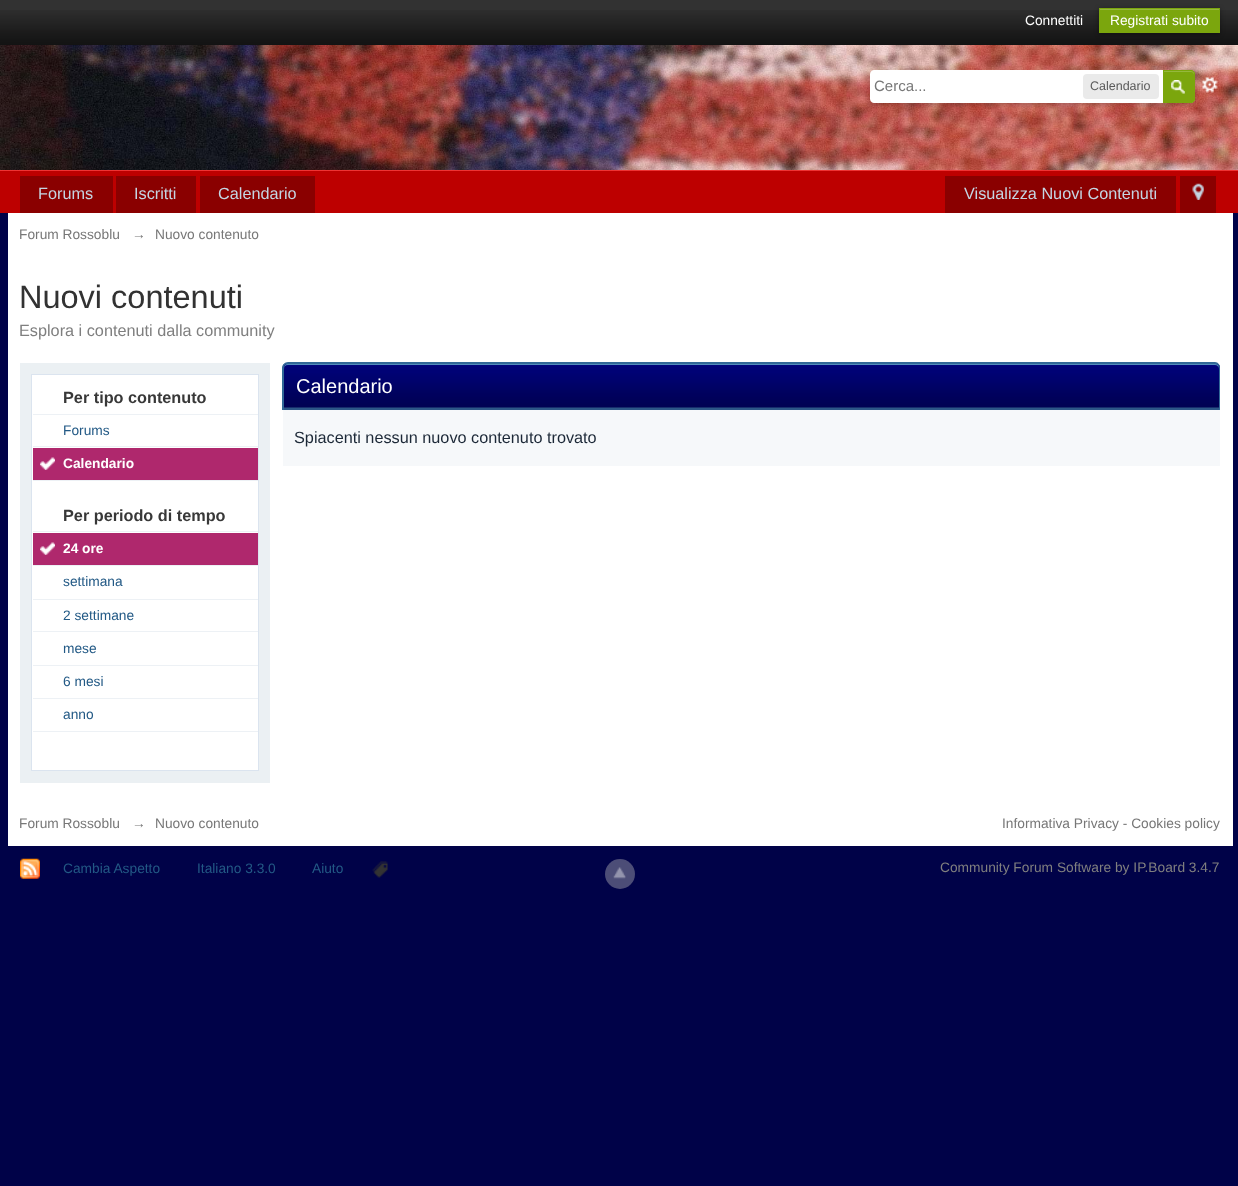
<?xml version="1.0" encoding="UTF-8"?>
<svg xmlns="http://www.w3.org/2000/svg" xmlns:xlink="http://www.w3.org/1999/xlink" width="1238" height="1186">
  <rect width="100%" height="100%" fill="#000248" />
  <rect width="1238" height="10" fill="#323232" />
  <image x="0" y="10" width="1238" height="35" xlink:href="image1.png" />
  <rect x="1099" y="9" width="121" height="25" fill="#000000" fill-opacity="0.4" filter="blur(2.5px)" />
  <rect x="1099" y="8" width="121" height="25" fill="#7ba60d" />
  <rect x="1100" y="9" width="119" height="1" fill="#95b83d" />
  <image x="0" y="45" width="1238" height="125" xlink:href="image2.png" />
  <rect y="170" width="1238" height="1" fill="#ee3333" />
  <image x="1202" y="77" width="16" height="16" xlink:href="image4.png" />
  <rect x="870" y="73" width="325" height="32" rx="5" fill="#000000" fill-opacity="0.2" filter="blur(2.5px)" />
  <path d="M 874 70 h 316 c 3 0 5 2 5 5 v 23 c 0 3 -2 5 -5 5 h -316 c -2 0 -4 -2 -4 -4 v -25 c 0 -2 2 -4 4 -4 z" fill="#ffffff" />
  <rect x="1083" y="74" width="76" height="25" rx="4" fill="#eaeaea" />
  <path d="M 1163 70 h 28 c 2 0 4 2 4 4 v 25 c 0 2 -2 4 -4 4 h -28 z" fill="#7ba60d" />
  <image x="1171" y="80" width="14" height="14" xlink:href="image3.png" />
  <path d="M 1164 72 h 27 c 2 0 3 2 3 3 v -1.5 c 0 -1.5 -1 -2.5 -2.5 -2.5 h -27.5 z" fill="#95b83d" />
  <path d="M 1163.5 70.5 h 27.5 c 2 0 3.5 1.5 3.5 3.5 v 25 c 0 2 -1.5 3.5 -3.5 3.5 h -27.5 z" fill="none" stroke="#7ba60d" />
  <rect y="171" width="1238" height="42" fill="#bd0000" />
  <rect x="20" y="176" width="93" height="37" fill="#8a0000" />
  <rect x="116" y="176" width="80" height="37" fill="#8a0000" />
  <rect x="200" y="176" width="115" height="37" fill="#8a0000" />
  <rect x="945" y="176" width="231" height="37" fill="#8a0000" />
  <rect x="1180" y="176" width="36" height="37" fill="#8a0000" />
  <image x="1192" y="183" width="12" height="17" xlink:href="image5.png" />
  <rect x="8" y="213" width="1225" height="633" fill="#ffffff" />
  <rect x="20" y="363" width="250" height="420" fill="#ebf0f3" />
  <rect x="31.5" y="374.5" width="227" height="396" fill="#ffffff" stroke="#dbe4ef" />
  <rect x="33" y="414" width="225" height="1" fill="#edf1f5" />
  <rect x="33" y="446" width="225" height="1" fill="#edf1f5" />
  <rect x="33" y="480" width="225" height="1" fill="#edf1f5" />
  <rect x="33" y="448" width="225" height="32" fill="#af286d" />
  <image x="40" y="457" width="15" height="13" xlink:href="image6.png" />
  <rect x="33" y="531" width="225" height="1" fill="#edf1f5" />
  <rect x="33" y="565" width="225" height="1" fill="#edf1f5" />
  <rect x="33" y="533" width="225" height="32" fill="#af286d" />
  <image x="40" y="542" width="15" height="13" xlink:href="image6.png" />
  <rect x="33" y="599" width="225" height="1" fill="#edf1f5" />
  <rect x="33" y="631" width="225" height="1" fill="#edf1f5" />
  <rect x="33" y="665" width="225" height="1" fill="#edf1f5" />
  <rect x="33" y="698" width="225" height="1" fill="#edf1f5" />
  <rect x="33" y="731" width="225" height="1" fill="#edf1f5" />
  <path d="M 288 364 h 927 c 2 0 4 2 4 4 v 42 h -935 v -42 c 0 -2 2 -4 4 -4 z" fill="#2c5687" />
  <image x="282" y="363" width="938" height="45" xlink:href="image7.png" />
  <path d="M 288 365 h 927 c 2 0 4 2 4 4 c 0 -3 -1 -5 -4 -5 h -927 c -3 0 -4 2 -4 5 c 0 -2 1 -4 4 -4 z" fill="#528cbc" />
  <path d="M 288 362 h 927 c 3 0 5 3 5 6 v 42 h -938 v -42 c 0 -3 3 -6 6 -6 z m 0 2 h 927 c 2 0 4 1 4 4 v 42 h -935 v -42 c 0 -3 1 -4 4 -4 z" fill="#316897" fill-rule="evenodd" />
  <rect x="283" y="410" width="937" height="56" fill="#f6f8fa" />
  <image x="20" y="858" width="20" height="21" xlink:href="image8.png" />
  <image x="372" y="861" width="16" height="17" xlink:href="image9.png" />
  <circle cx="620" cy="874" r="15" fill="#4c4d77" />
  <image x="613" y="867" width="13" height="12" xlink:href="image10.png" />
  <text x="1025" y="25" style="font-family: Liberation Sans; font-size: 13.75px; fill: #ffffff">Connettiti</text>
  <text x="1110" y="25" style="font-family: Liberation Sans; font-size: 13.75px; fill: #ffffff">Registrati subito</text>
  <text x="874" y="91" style="font-family: Liberation Sans; font-size: 15px; fill: #777777">Cerca...</text>
  <text x="1090" y="90" style="font-family: Liberation Sans; font-size: 12.5px; fill: #5a5a5a">Calendario</text>
  <text x="38" y="199" style="font-family: Liberation Sans; font-size: 16.25px; fill: #c5d5e2">Forums</text>
  <text x="134" y="199" style="font-family: Liberation Sans; font-size: 16.25px; fill: #c5d5e2">Iscritti</text>
  <text x="218" y="199" style="font-family: Liberation Sans; font-size: 16.25px; fill: #c5d5e2">Calendario</text>
  <text x="964" y="199" style="font-family: Liberation Sans; font-size: 16.25px; fill: #c5d5e2">Visualizza Nuovi Contenuti</text>
  <text x="19" y="239" style="font-family: Liberation Sans; font-size: 13.75px; fill: #777777">Forum Rossoblu</text>
  <text x="132" y="239" style="font-family: Liberation Sans; font-size: 13.75px; fill: #777777">→</text>
  <text x="155" y="239" style="font-family: Liberation Sans; font-size: 13.75px; fill: #777777">Nuovo contenuto</text>
  <text x="19" y="308" style="font-family: Liberation Sans; font-size: 32.5px; fill: #323232">Nuovi contenuti</text>
  <text x="19" y="336" style="font-family: Liberation Sans; font-size: 16.25px; fill: #7f7f7f">Esplora i contenuti dalla community</text>
  <text x="63" y="403" style="font-family: Liberation Sans; font-size: 16.25px; font-weight: bold; fill: #383838">Per tipo contenuto</text>
  <text x="63" y="435" style="font-family: Liberation Sans; font-size: 13.75px; fill: #225985">Forums</text>
  <text x="63" y="468" style="font-family: Liberation Sans; font-size: 13.75px; font-weight: bold; fill: #ffffff">Calendario</text>
  <text x="63" y="521" style="font-family: Liberation Sans; font-size: 16.25px; font-weight: bold; fill: #383838">Per periodo di tempo</text>
  <text x="63" y="553" style="font-family: Liberation Sans; font-size: 13.75px; font-weight: bold; fill: #ffffff">24 ore</text>
  <text x="63" y="586" style="font-family: Liberation Sans; font-size: 13.75px; fill: #225985">settimana</text>
  <text x="63" y="620" style="font-family: Liberation Sans; font-size: 13.75px; fill: #225985">2 settimane</text>
  <text x="63" y="653" style="font-family: Liberation Sans; font-size: 13.75px; fill: #225985">mese</text>
  <text x="63" y="686" style="font-family: Liberation Sans; font-size: 13.75px; fill: #225985">6 mesi</text>
  <text x="63" y="719" style="font-family: Liberation Sans; font-size: 13.75px; fill: #225985">anno</text>
  <text x="296" y="393" style="font-family: Liberation Sans; font-size: 20px; fill: #ffffff">Calendario</text>
  <text x="294" y="443" style="font-family: Liberation Sans; font-size: 16.25px; fill: #1c2837">Spiacenti nessun nuovo contenuto trovato</text>
  <text x="19" y="828" style="font-family: Liberation Sans; font-size: 13.75px; fill: #777777">Forum Rossoblu</text>
  <text x="132" y="828" style="font-family: Liberation Sans; font-size: 13.75px; fill: #777777">→</text>
  <text x="155" y="828" style="font-family: Liberation Sans; font-size: 13.75px; fill: #777777">Nuovo contenuto</text>
  <text x="1002" y="828" style="font-family: Liberation Sans; font-size: 13.75px; fill: #777777">Informativa Privacy - Cookies policy</text>
  <text x="63" y="873" style="font-family: Liberation Sans; font-size: 13.75px; fill: #225985">Cambia Aspetto</text>
  <text x="197" y="873" style="font-family: Liberation Sans; font-size: 13.75px; fill: #225985">Italiano 3.3.0</text>
  <text x="312" y="873" style="font-family: Liberation Sans; font-size: 13.75px; fill: #225985">Aiuto</text>
  <text x="940" y="872" style="font-family: Liberation Sans; font-size: 13.75px; fill: #7f7f7f">Community Forum Software by IP.Board 3.4.7</text>
</svg>
